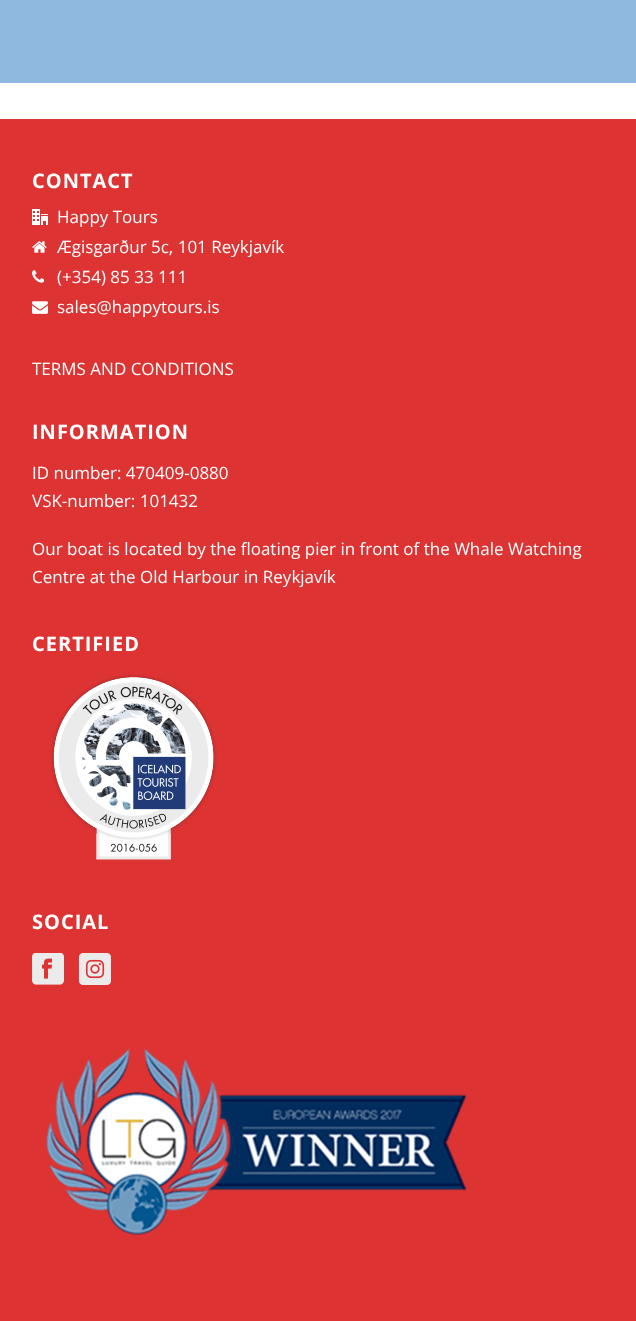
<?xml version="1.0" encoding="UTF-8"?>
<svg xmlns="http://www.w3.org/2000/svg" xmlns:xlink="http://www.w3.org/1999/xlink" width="636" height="1321">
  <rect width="100%" height="100%" fill="#ffffff" />
  <rect width="636" height="83" fill="#8fb9df" />
  <rect y="119" width="636" height="1202" fill="#dd3333" />
  <image x="32" y="209" width="16" height="16" xlink:href="image1.png" />
  <image x="32" y="241" width="15" height="12" xlink:href="image2.png" />
  <image x="32" y="270" width="12" height="13" xlink:href="image3.png" />
  <image x="32" y="301" width="16" height="13" xlink:href="image4.png" />
  <image x="50" y="674" width="167" height="186" xlink:href="image5.png" />
  <image x="32" y="953" width="32" height="32" xlink:href="image6.png" />
  <image x="79" y="953" width="32" height="32" xlink:href="image7.png" />
  <image x="46" y="1048" width="421" height="187" xlink:href="image8.png" />
  <text x="32" y="188" style="font-family: Open Sans; font-size: 20px; font-weight: bold; letter-spacing: 1px; fill: #ffffff">CONTACT</text>
  <text x="57" y="223" style="font-family: Open Sans; font-size: 17px; fill: #ffffff">Happy Tours</text>
  <text x="57" y="253" style="font-family: Open Sans; font-size: 17px; fill: #ffffff">Ægisgarður 5c, 101 Reykjavík</text>
  <text x="57" y="283" style="font-family: Open Sans; font-size: 17px; fill: #ffffff">(+354) 85 33 111</text>
  <text x="57" y="313" style="font-family: Open Sans; font-size: 17px; fill: #ffffff">sales@happytours.is</text>
  <text x="32" y="375" style="font-family: Open Sans; font-size: 17px; fill: #ffffff">TERMS AND CONDITIONS</text>
  <text x="32" y="439" style="font-family: Open Sans; font-size: 20px; font-weight: bold; letter-spacing: 1px; fill: #ffffff">INFORMATION</text>
  <text x="32" y="479" style="font-family: Open Sans; font-size: 17px; fill: #ffffff">ID number: 470409-0880</text>
  <text x="32" y="507" style="font-family: Open Sans; font-size: 17px; fill: #ffffff">VSK-number: 101432</text>
  <text x="32" y="555" style="font-family: Open Sans; font-size: 17px; fill: #ffffff">Our boat is located by the floating pier in front of the Whale Watching</text>
  <text x="32" y="583" style="font-family: Open Sans; font-size: 17px; fill: #ffffff">Centre at the Old Harbour in Reykjavík</text>
  <text x="32" y="651" style="font-family: Open Sans; font-size: 20px; font-weight: bold; letter-spacing: 1px; fill: #ffffff">CERTIFIED</text>
  <text x="32" y="929" style="font-family: Open Sans; font-size: 20px; font-weight: bold; letter-spacing: 1px; fill: #ffffff">SOCIAL</text>
</svg>
